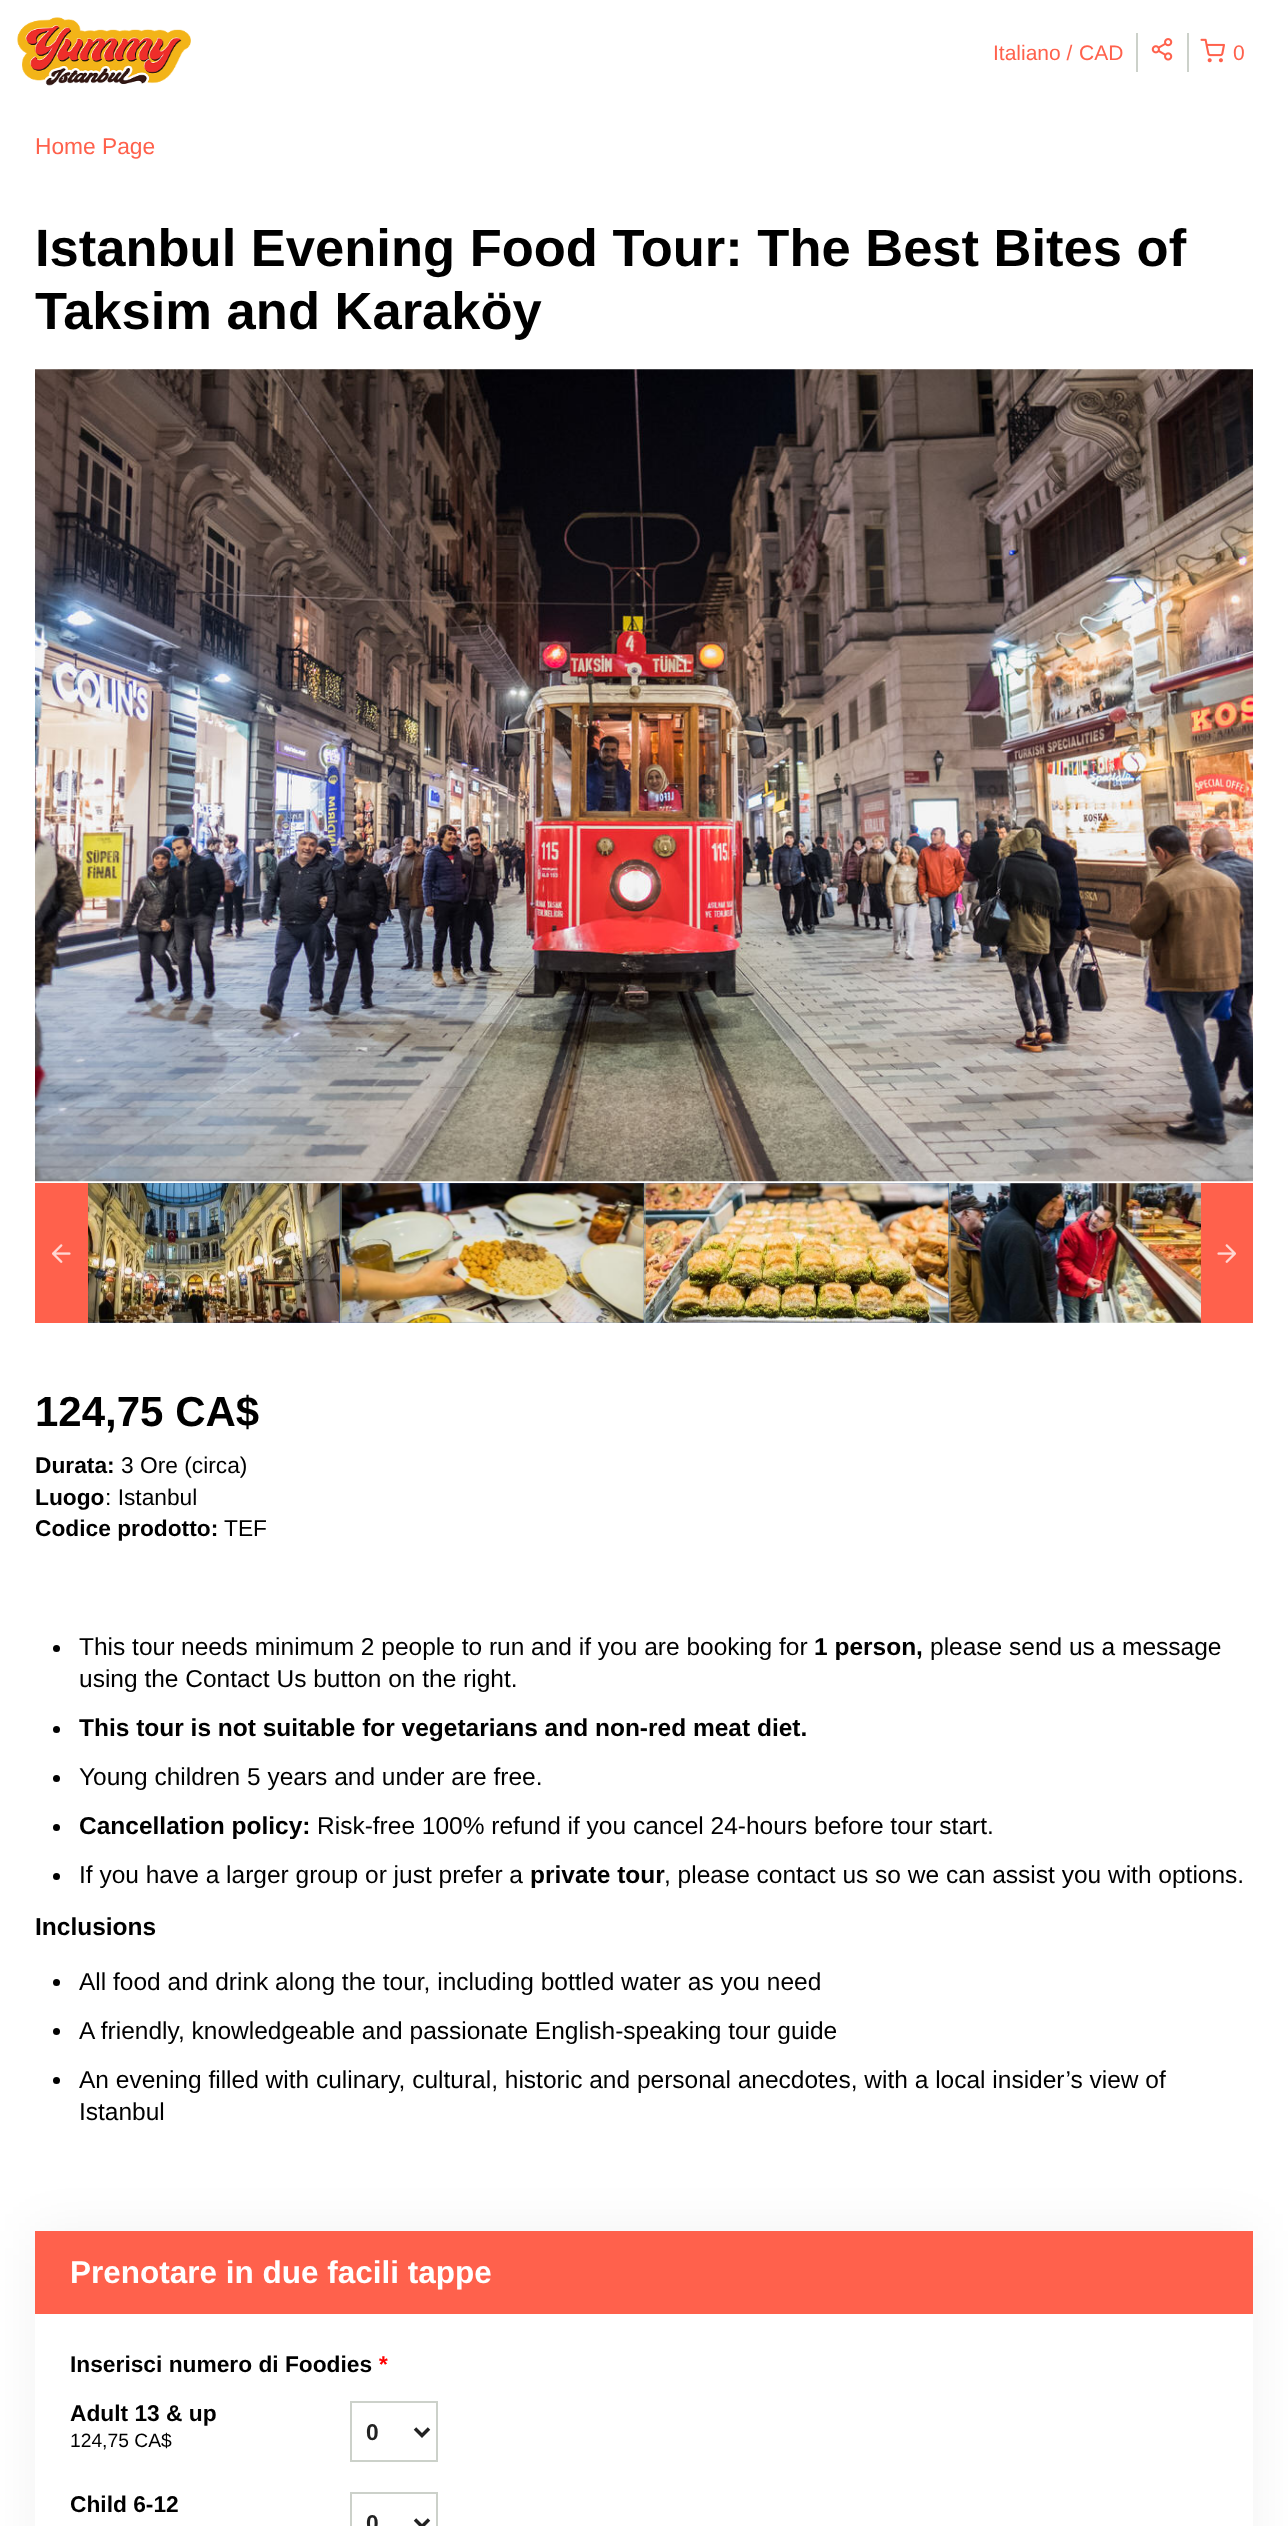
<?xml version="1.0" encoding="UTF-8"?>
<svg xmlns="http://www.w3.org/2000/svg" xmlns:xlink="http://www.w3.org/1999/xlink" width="1288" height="2526">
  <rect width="100%" height="100%" fill="#ffffff" />
  <image x="17" y="17" width="174" height="69" xlink:href="image1.png" />
  <rect x="1136" y="33" width="2" height="39" fill="#ccd1ca" />
  <rect x="1187" y="33" width="2" height="39" fill="#ccd1ca" />
  <image x="1151" y="38" width="22" height="23" xlink:href="image2.png" />
  <image x="1200" y="38" width="25" height="25" xlink:href="image3.png" />
  <image x="35" y="369" width="1218" height="813" xlink:href="image4.png" />
  <rect x="35" y="1183" width="53" height="140" fill="#ff614c" />
  <image x="52" y="1244" width="19" height="19" xlink:href="image5.png" />
  <rect x="88" y="1183" width="861" height="140" fill="#3c68b4" />
  <image x="88" y="1183" width="252" height="140" xlink:href="image6.png" />
  <image x="340" y="1183" width="304" height="140" xlink:href="image7.png" />
  <rect x="340" y="1183" width="2" height="140" fill="#98a394" fill-opacity="0.5" />
  <image x="644" y="1183" width="305" height="140" xlink:href="image8.png" />
  <rect x="644" y="1183" width="2" height="140" fill="#98a394" fill-opacity="0.5" />
  <image x="949" y="1183" width="252" height="140" xlink:href="image9.png" />
  <rect x="949" y="1183" width="2" height="140" fill="#98a394" fill-opacity="0.5" />
  <rect x="1201" y="1183" width="52" height="140" fill="#ff614c" />
  <image x="1217" y="1244" width="19" height="19" xlink:href="image10.png" />
  <circle cx="56.5" cy="1648.5" r="3.5" fill="#000000" />
  <circle cx="56.5" cy="1729.5" r="3.5" fill="#000000" />
  <circle cx="56.5" cy="1778.5" r="3.5" fill="#000000" />
  <circle cx="56.5" cy="1827.5" r="3.5" fill="#000000" />
  <circle cx="56.5" cy="1876.5" r="3.5" fill="#000000" />
  <circle cx="56.5" cy="1982.5" r="3.5" fill="#000000" />
  <circle cx="56.5" cy="2031.5" r="3.5" fill="#000000" />
  <circle cx="56.5" cy="2080.5" r="3.5" fill="#000000" />
  <rect x="35" y="2231" width="1218" height="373" fill="#000000" fill-opacity="0.05" filter="blur(26px)" />
  <rect x="35" y="2314" width="1218" height="212" fill="#ffffff" />
  <rect x="35" y="2231" width="1218" height="83" fill="#ff614c" />
  <rect x="351" y="2402" width="86" height="59" fill="none" stroke="#ccd1ca" stroke-width="2" />
  <path d="M 415 2428.5 l 7 7 l 7 -7" fill="none" stroke="#222222" stroke-width="3.5" />
  <rect x="351" y="2493" width="86" height="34" fill="none" stroke="#ccd1ca" stroke-width="2" />
  <path d="M 415 2519.5 l 7 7 l 7 -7" fill="none" stroke="#222222" stroke-width="3.5" />
  <text x="993" y="60" style="font-family: Liberation Sans; font-size: 21px; fill: #ff614c">Italiano /</text>
  <text x="1079" y="60" style="font-family: Liberation Sans; font-size: 21px; fill: #ff614c">CAD</text>
  <text x="1233" y="60" style="font-family: Liberation Sans; font-size: 21px; fill: #ff614c">0</text>
  <text x="35" y="154" style="font-family: Liberation Sans; font-size: 22.75px; fill: #ff614c">Home Page</text>
  <text x="35" y="266" style="font-family: Liberation Sans; font-size: 52.5px; font-weight: bold; fill: #000000">Istanbul Evening Food Tour: The Best Bites of</text>
  <text x="35" y="329" style="font-family: Liberation Sans; font-size: 52.5px; font-weight: bold; fill: #000000">Taksim and Karaköy</text>
  <text x="35" y="1426" style="font-family: Liberation Sans; font-size: 42px; font-weight: bold; fill: #000000">124,75 CA$</text>
  <text x="35" y="1473" style="font-family: Liberation Sans; font-size: 22.75px; font-weight: bold; fill: #000000">Durata:</text>
  <text x="121" y="1473" style="font-family: Liberation Sans; font-size: 22.75px; fill: #000000">3 Ore (circa)</text>
  <text x="35" y="1505" style="font-family: Liberation Sans; font-size: 22.75px; font-weight: bold; fill: #000000">Luogo</text>
  <text x="105" y="1505" style="font-family: Liberation Sans; font-size: 22.75px; fill: #000000">: Istanbul</text>
  <text x="35" y="1536" style="font-family: Liberation Sans; font-size: 22.75px; font-weight: bold; fill: #000000">Codice prodotto:</text>
  <text x="224" y="1536" style="font-family: Liberation Sans; font-size: 22.75px; fill: #000000">TEF</text>
  <text x="79" y="1655" style="font-family: Liberation Sans; font-size: 24.5px; fill: #000000">This tour needs minimum 2 people to run and if you are booking for</text>
  <text x="814" y="1655" style="font-family: Liberation Sans; font-size: 24.5px; font-weight: bold; fill: #000000">1 person,</text>
  <text x="930" y="1655" style="font-family: Liberation Sans; font-size: 24.5px; fill: #000000">please send us a message</text>
  <text x="79" y="1687" style="font-family: Liberation Sans; font-size: 24.5px; fill: #000000">using the Contact Us button on the right.</text>
  <text x="79" y="1736" style="font-family: Liberation Sans; font-size: 24.5px; font-weight: bold; fill: #000000">This tour is not suitable for vegetarians and non-red meat diet.</text>
  <text x="79" y="1785" style="font-family: Liberation Sans; font-size: 24.5px; fill: #000000">Young children 5 years and under are free.</text>
  <text x="79" y="1834" style="font-family: Liberation Sans; font-size: 24.5px; font-weight: bold; fill: #000000">Cancellation policy:</text>
  <text x="317" y="1834" style="font-family: Liberation Sans; font-size: 24.5px; fill: #000000">Risk-free 100% refund if you cancel 24-hours before tour start.</text>
  <text x="79" y="1883" style="font-family: Liberation Sans; font-size: 24.5px; fill: #000000">If you have a larger group or just prefer a</text>
  <text x="530" y="1883" style="font-family: Liberation Sans; font-size: 24.5px; font-weight: bold; fill: #000000">private tour</text>
  <text x="664" y="1883" style="font-family: Liberation Sans; font-size: 24.5px; fill: #000000">, please contact us so we can assist you with options.</text>
  <text x="35" y="1935" style="font-family: Liberation Sans; font-size: 24.5px; font-weight: bold; fill: #000000">Inclusions</text>
  <text x="79" y="1990" style="font-family: Liberation Sans; font-size: 24.5px; fill: #000000">All food and drink along the tour, including bottled water as you need</text>
  <text x="79" y="2039" style="font-family: Liberation Sans; font-size: 24.5px; fill: #000000">A friendly, knowledgeable and passionate English-speaking tour guide</text>
  <text x="79" y="2088" style="font-family: Liberation Sans; font-size: 24.5px; fill: #000000">An evening filled with culinary, cultural, historic and personal anecdotes, with a local insider’s view of</text>
  <text x="79" y="2120" style="font-family: Liberation Sans; font-size: 24.5px; fill: #000000">Istanbul</text>
  <text x="70" y="2283" style="font-family: Liberation Sans; font-size: 31.5px; font-weight: bold; fill: #ffffff">Prenotare in due facili tappe</text>
  <text x="70" y="2372" style="font-family: Liberation Sans; font-size: 22.75px; font-weight: bold; fill: #000000">Inserisci numero di Foodies</text>
  <text x="378" y="2372" style="font-family: Liberation Sans; font-size: 22.75px; font-weight: bold; font-style: italic; fill: #ff0000">*</text>
  <text x="70" y="2421" style="font-family: Liberation Sans; font-size: 22.75px; font-weight: bold; fill: #000000">Adult 13 &amp; up</text>
  <text x="70" y="2447" style="font-family: Liberation Sans; font-size: 19.25px; fill: #000000">124,75 CA$</text>
  <text x="366" y="2440" style="font-family: Liberation Sans; font-size: 22.75px; font-weight: bold; fill: #222222">0</text>
  <text x="70" y="2512" style="font-family: Liberation Sans; font-size: 22.75px; font-weight: bold; fill: #000000">Child 6-12</text>
  <text x="366" y="2531" style="font-family: Liberation Sans; font-size: 22.75px; font-weight: bold; fill: #222222">0</text>
</svg>
